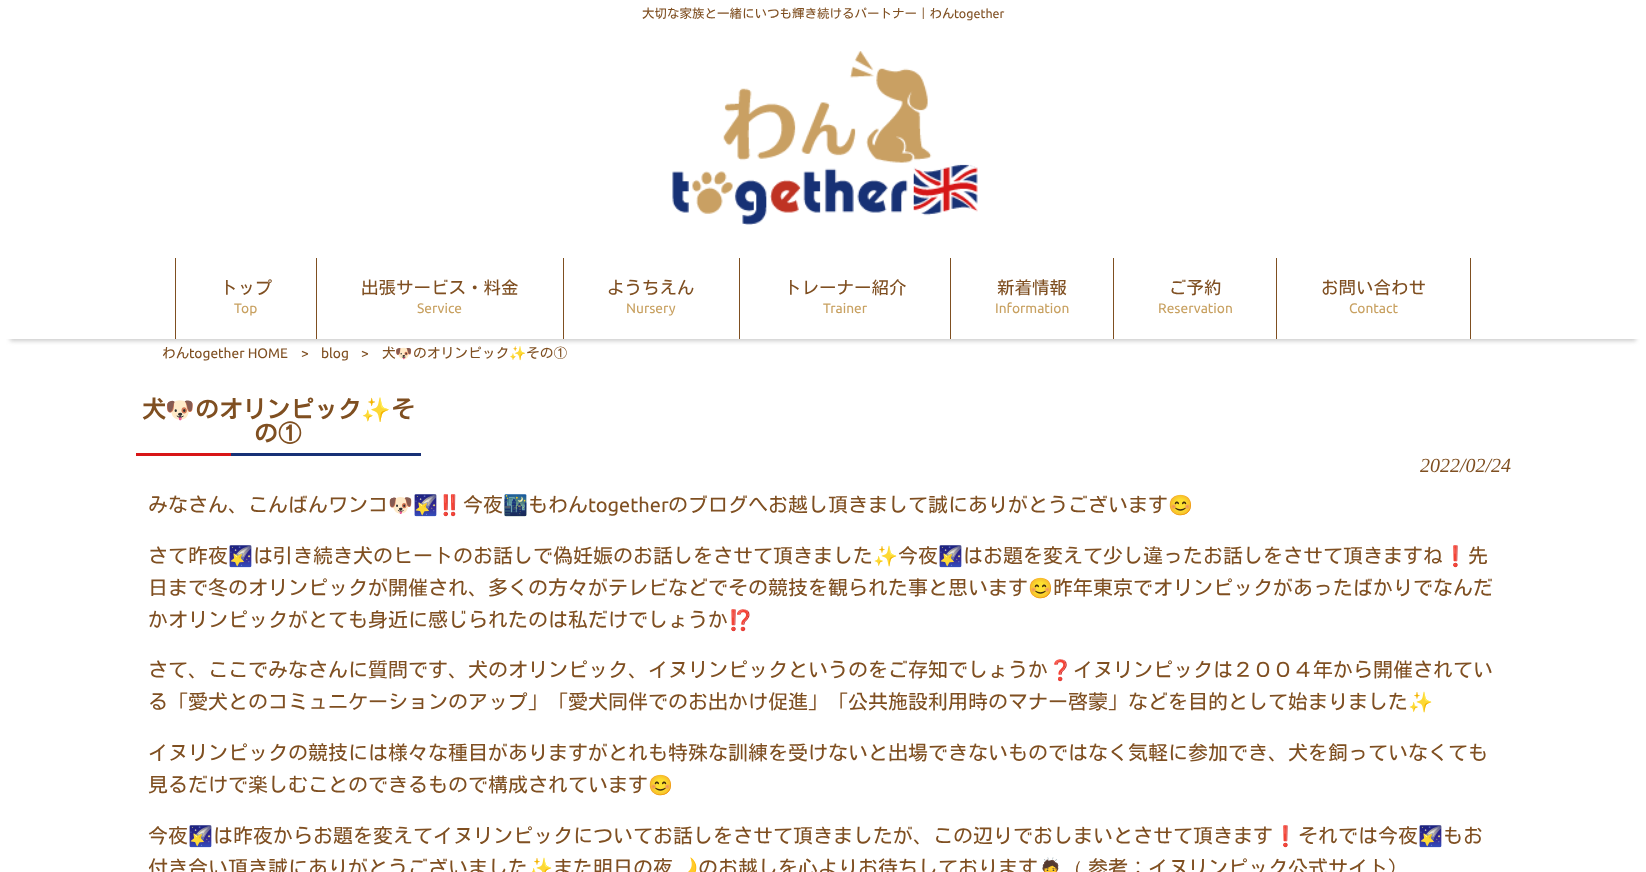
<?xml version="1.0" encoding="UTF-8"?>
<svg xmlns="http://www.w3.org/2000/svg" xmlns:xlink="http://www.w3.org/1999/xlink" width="1646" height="872">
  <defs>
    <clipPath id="clip1"><path d="M 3 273 h 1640 v 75 h -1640 z m -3 -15 h 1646 v 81 h -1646 z" clip-rule="evenodd" /></clipPath>
  </defs>
  <rect width="100%" height="100%" fill="#ffffff" />
  <image x="672" y="51" width="306" height="174" xlink:href="image1.png" />
  <g clip-path="url(#clip1)">
    <rect x="10" y="280" width="1626" height="61" fill="#cccccc" filter="blur(2px)" />
  </g>
  <rect x="316" y="258" width="1" height="81" fill="#7f4f21" />
  <rect x="175" y="258" width="1" height="81" fill="#7f4f21" />
  <rect x="563" y="258" width="1" height="81" fill="#7f4f21" />
  <rect x="739" y="258" width="1" height="81" fill="#7f4f21" />
  <rect x="950" y="258" width="1" height="81" fill="#7f4f21" />
  <rect x="1113" y="258" width="1" height="81" fill="#7f4f21" />
  <rect x="1276" y="258" width="1" height="81" fill="#7f4f21" />
  <rect x="1470" y="258" width="1" height="81" fill="#7f4f21" />
  <rect x="231" y="453" width="190" height="3" fill="#173176" />
  <rect x="136" y="453" width="95" height="3" fill="#d81617" />
  <text x="642" y="18" style="font-family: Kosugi; font-size: 12.5px; fill: #7f4f21">大切な家族と一緒にいつも輝き続けるパートナー｜わん</text>
  <text x="954" y="18" style="font-family: Ubuntu; font-size: 12.5px; fill: #7f4f21">together</text>
  <text x="220" y="294" style="font-family: Kosugi; font-size: 17.5px; fill: #7f4f21">トップ</text>
  <text x="234" y="313" style="font-family: Ubuntu; font-size: 13.75px; fill: #c8a161">Top</text>
  <text x="361" y="294" style="font-family: Kosugi; font-size: 17.5px; fill: #7f4f21">出張サービス・料金</text>
  <text x="417" y="313" style="font-family: Ubuntu; font-size: 13.75px; fill: #c8a161">Service</text>
  <text x="607" y="294" style="font-family: Kosugi; font-size: 17.5px; fill: #7f4f21">ようちえん</text>
  <text x="626" y="313" style="font-family: Ubuntu; font-size: 13.75px; fill: #c8a161">Nursery</text>
  <text x="784" y="294" style="font-family: Kosugi; font-size: 17.5px; fill: #7f4f21">トレーナー紹介</text>
  <text x="823" y="313" style="font-family: Ubuntu; font-size: 13.75px; fill: #c8a161">Trainer</text>
  <text x="997" y="294" style="font-family: Kosugi; font-size: 17.5px; fill: #7f4f21">新着情報</text>
  <text x="995" y="313" style="font-family: Ubuntu; font-size: 13.75px; fill: #c8a161">Information</text>
  <text x="1169" y="294" style="font-family: Kosugi; font-size: 17.5px; fill: #7f4f21">ご予約</text>
  <text x="1158" y="313" style="font-family: Ubuntu; font-size: 13.75px; fill: #c8a161">Reservation</text>
  <text x="1321" y="294" style="font-family: Kosugi; font-size: 17.5px; fill: #7f4f21">お問い合わせ</text>
  <text x="1349" y="313" style="font-family: Ubuntu; font-size: 13.75px; fill: #c8a161">Contact</text>
  <text x="162" y="358" style="font-family: Kosugi; font-size: 13.75px; fill: #7f4f21">わん</text>
  <text x="189" y="358" style="font-family: Ubuntu; font-size: 13.75px; fill: #7f4f21">together HOME</text>
  <text x="301" y="358" style="font-family: Ubuntu; font-size: 13.75px; fill: #7f4f21">&gt;</text>
  <text x="321" y="358" style="font-family: Ubuntu; font-size: 13.75px; fill: #7f4f21">blog</text>
  <text x="361" y="358" style="font-family: Ubuntu; font-size: 13.75px; fill: #7f4f21">&gt;</text>
  <text x="382" y="358" style="font-family: Kosugi; font-size: 13.75px; fill: #7f4f21">犬</text>
  <text x="395" y="358" style="font-family: Noto Color Emoji; font-size: 13.75px; fill: #7f4f21">🐶</text>
  <text x="413" y="358" style="font-family: Kosugi; font-size: 13.75px; fill: #7f4f21">のオリンピック</text>
  <text x="509" y="358" style="font-family: Noto Color Emoji; font-size: 13.75px; fill: #7f4f21">✨</text>
  <text x="526" y="358" style="font-family: Kosugi; font-size: 13.75px; fill: #7f4f21">その①</text>
  <text x="142" y="418" style="font-family: Kosugi; font-size: 23.75px; font-weight: bold; fill: #7f4f21">犬</text>
  <text x="165" y="418" style="font-family: Noto Color Emoji; font-size: 23.75px; font-weight: bold; fill: #7f4f21">🐶</text>
  <text x="195" y="418" style="font-family: Kosugi; font-size: 23.75px; font-weight: bold; fill: #7f4f21">のオリンピック</text>
  <text x="361" y="418" style="font-family: Noto Color Emoji; font-size: 23.75px; font-weight: bold; fill: #7f4f21">✨</text>
  <text x="391" y="418" style="font-family: Kosugi; font-size: 23.75px; font-weight: bold; fill: #7f4f21">そ</text>
  <text x="254" y="442" style="font-family: Kosugi; font-size: 23.75px; font-weight: bold; fill: #7f4f21">の①</text>
  <text x="1420" y="472" style="font-family: Liberation Serif; font-size: 20px; font-style: italic; fill: #7f4f21">2022/02/24</text>
  <text x="148" y="512" style="font-family: Kosugi; font-size: 20px; fill: #7f4f21">みなさん、こんばんワンコ</text>
  <text x="388" y="512" style="font-family: Noto Color Emoji; font-size: 20px; fill: #7f4f21">🐶🌠‼️</text>
  <text x="463" y="512" style="font-family: Kosugi; font-size: 20px; fill: #7f4f21">今夜</text>
  <text x="503" y="512" style="font-family: Noto Color Emoji; font-size: 20px; fill: #7f4f21">🌃</text>
  <text x="528" y="512" style="font-family: Kosugi; font-size: 20px; fill: #7f4f21">もわん</text>
  <text x="588" y="512" style="font-family: Ubuntu; font-size: 20px; fill: #7f4f21">together</text>
  <text x="668" y="512" style="font-family: Kosugi; font-size: 20px; fill: #7f4f21">のブログへお越し頂きまして誠にありがとうございます</text>
  <text x="1168" y="512" style="font-family: Noto Color Emoji; font-size: 20px; fill: #7f4f21">😊</text>
  <text x="148" y="563" style="font-family: Kosugi; font-size: 20px; fill: #7f4f21">さて昨夜</text>
  <text x="228" y="563" style="font-family: Noto Color Emoji; font-size: 20px; fill: #7f4f21">🌠</text>
  <text x="253" y="563" style="font-family: Kosugi; font-size: 20px; fill: #7f4f21">は引き続き犬のヒートのお話しで偽妊娠のお話しをさせて頂きました</text>
  <text x="873" y="563" style="font-family: Noto Color Emoji; font-size: 20px; fill: #7f4f21">✨</text>
  <text x="898" y="563" style="font-family: Kosugi; font-size: 20px; fill: #7f4f21">今夜</text>
  <text x="938" y="563" style="font-family: Noto Color Emoji; font-size: 20px; fill: #7f4f21">🌠</text>
  <text x="963" y="563" style="font-family: Kosugi; font-size: 20px; fill: #7f4f21">はお題を変えて少し違ったお話しをさせて頂きますね</text>
  <text x="1443" y="563" style="font-family: Noto Color Emoji; font-size: 20px; fill: #7f4f21">❗️</text>
  <text x="1468" y="563" style="font-family: Kosugi; font-size: 20px; fill: #7f4f21">先</text>
  <text x="148" y="595" style="font-family: Kosugi; font-size: 20px; fill: #7f4f21">日まで冬のオリンピックが開催され、多くの方々がテレビなどでその競技を観られた事と思います</text>
  <text x="1028" y="595" style="font-family: Noto Color Emoji; font-size: 20px; fill: #7f4f21">😊</text>
  <text x="1053" y="595" style="font-family: Kosugi; font-size: 20px; fill: #7f4f21">昨年東京でオリンピックがあったばかりでなんだ</text>
  <text x="148" y="627" style="font-family: Kosugi; font-size: 20px; fill: #7f4f21">かオリンピックがとても身近に感じられたのは私だけでしょうか</text>
  <text x="728" y="627" style="font-family: Noto Color Emoji; font-size: 20px; fill: #7f4f21">⁉️</text>
  <text x="148" y="677" style="font-family: Kosugi; font-size: 20px; fill: #7f4f21">さて、ここでみなさんに質問です、犬のオリンピック、イヌリンピックというのをご存知でしょうか</text>
  <text x="1048" y="677" style="font-family: Noto Color Emoji; font-size: 20px; fill: #7f4f21">❓</text>
  <text x="1073" y="677" style="font-family: Kosugi; font-size: 20px; fill: #7f4f21">イヌリンピックは２００４年から開催されてい</text>
  <text x="148" y="709" style="font-family: Kosugi; font-size: 20px; fill: #7f4f21">る「愛犬とのコミュニケーションのアップ」「愛犬同伴でのお出かけ促進」「公共施設利用時のマナー啓蒙」などを目的として始まりました</text>
  <text x="1408" y="709" style="font-family: Noto Color Emoji; font-size: 20px; fill: #7f4f21">✨</text>
  <text x="148" y="760" style="font-family: Kosugi; font-size: 20px; fill: #7f4f21">イヌリンピックの競技には様々な種目がありますがとれも特殊な訓練を受けないと出場できないものではなく気軽に参加でき、犬を飼っていなくても</text>
  <text x="148" y="792" style="font-family: Kosugi; font-size: 20px; fill: #7f4f21">見るだけで楽しむことのできるもので構成されています</text>
  <text x="648" y="792" style="font-family: Noto Color Emoji; font-size: 20px; fill: #7f4f21">😊</text>
  <text x="148" y="843" style="font-family: Kosugi; font-size: 20px; fill: #7f4f21">今夜</text>
  <text x="188" y="843" style="font-family: Noto Color Emoji; font-size: 20px; fill: #7f4f21">🌠</text>
  <text x="213" y="843" style="font-family: Kosugi; font-size: 20px; fill: #7f4f21">は昨夜からお題を変えてイヌリンピックについてお話しをさせて頂きましたが、この辺りでおしまいとさせて頂きます</text>
  <text x="1273" y="843" style="font-family: Noto Color Emoji; font-size: 20px; fill: #7f4f21">❗️</text>
  <text x="1298" y="843" style="font-family: Kosugi; font-size: 20px; fill: #7f4f21">それでは今夜</text>
  <text x="1418" y="843" style="font-family: Noto Color Emoji; font-size: 20px; fill: #7f4f21">🌠</text>
  <text x="1443" y="843" style="font-family: Kosugi; font-size: 20px; fill: #7f4f21">もお</text>
  <text x="148" y="875" style="font-family: Kosugi; font-size: 20px; fill: #7f4f21">付き合い頂き誠にありがとうございました</text>
  <text x="528" y="875" style="font-family: Noto Color Emoji; font-size: 20px; fill: #7f4f21">✨</text>
  <text x="553" y="875" style="font-family: Kosugi; font-size: 20px; fill: #7f4f21">また明日の夜</text>
  <text x="673" y="875" style="font-family: Noto Color Emoji; font-size: 20px; fill: #7f4f21">🌙</text>
  <text x="698" y="875" style="font-family: Kosugi; font-size: 20px; fill: #7f4f21">のお越しを心よりお待ちしております</text>
  <text x="1038" y="875" style="font-family: Noto Color Emoji; font-size: 20px; fill: #7f4f21">🙇‍（</text>
  <text x="1088" y="875" style="font-family: Kosugi; font-size: 20px; fill: #7f4f21">参考：イヌリンピック公式サイト）</text>
</svg>
